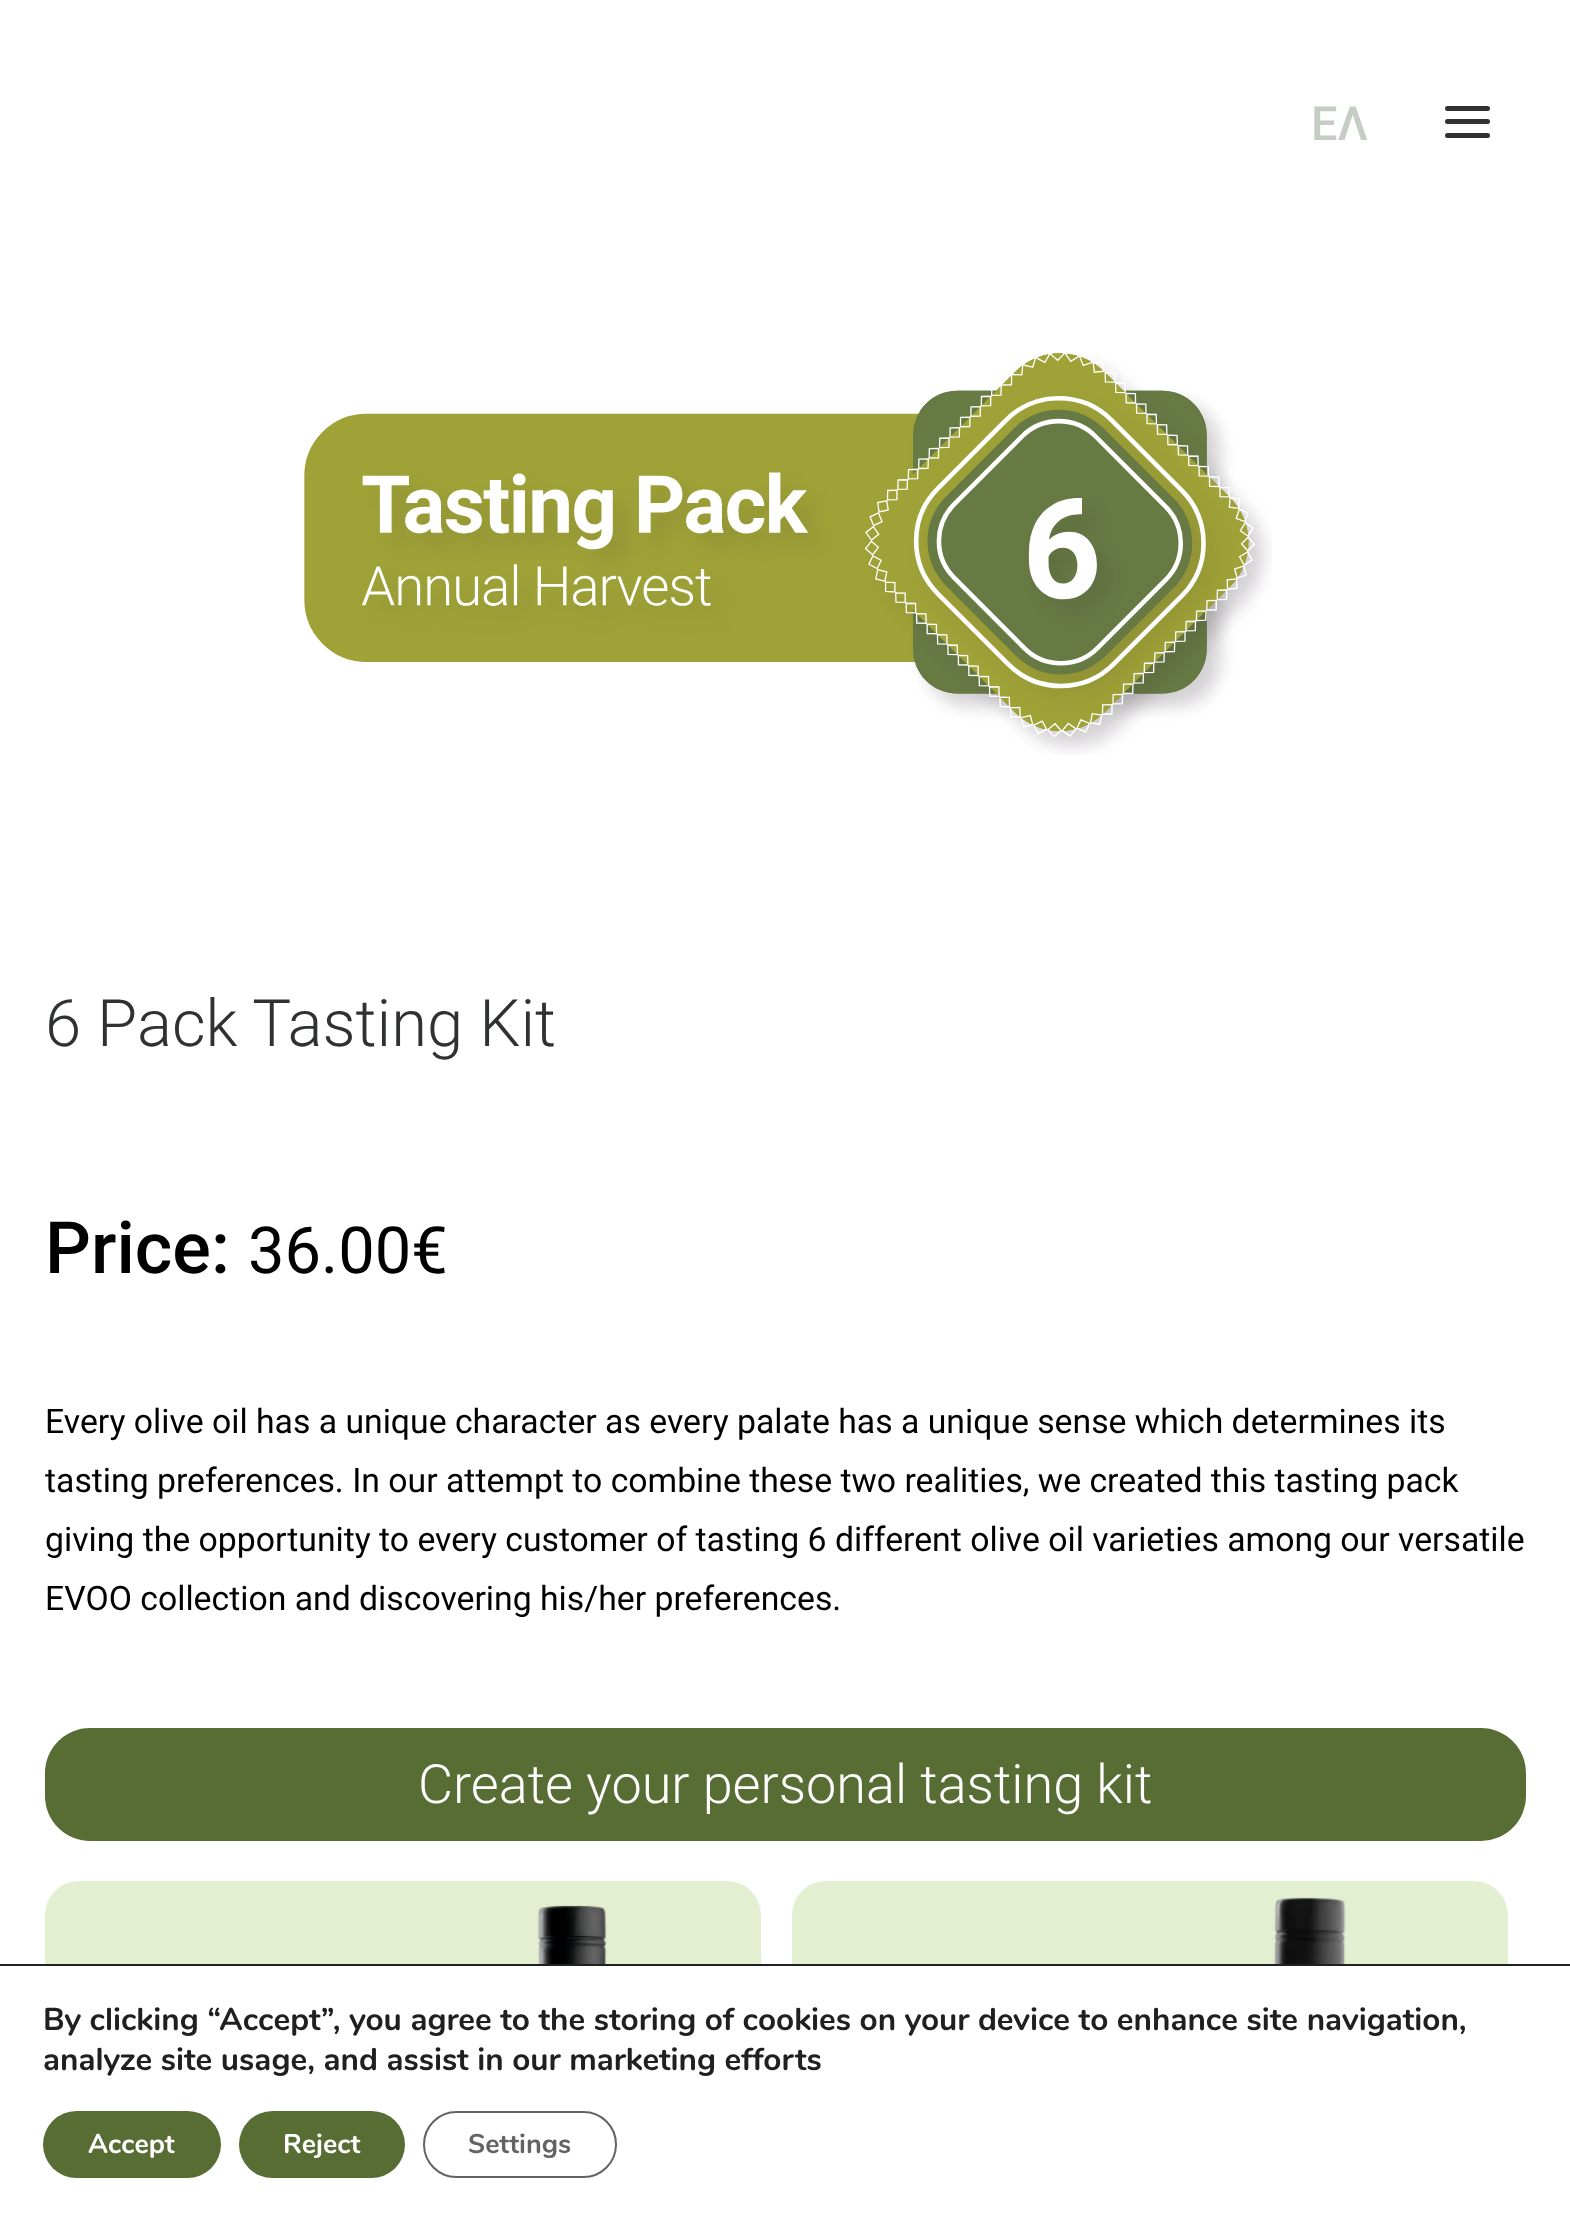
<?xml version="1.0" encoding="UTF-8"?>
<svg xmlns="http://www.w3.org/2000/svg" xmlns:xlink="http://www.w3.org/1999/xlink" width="1570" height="2218">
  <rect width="100%" height="100%" fill="#ffffff" />
  <rect x="1445" y="119" width="45" height="5" rx="2.5" fill="#303133" />
  <rect x="1445" y="106" width="45" height="5" rx="2.5" fill="#303133" />
  <rect x="1445" y="133" width="45" height="5" rx="2.5" fill="#303133" />
  <image x="304" y="352" width="968" height="403" xlink:href="image1.png" />
  <rect x="45" y="1728" width="1481" height="113" rx="45" fill="#586d34" />
  <rect x="45" y="1881" width="716" height="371" rx="34" fill="#e4efd1" />
  <image x="537" y="1905" width="70" height="59" xlink:href="image2.png" />
  <rect x="792" y="1881" width="716" height="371" rx="34" fill="#e4efd1" />
  <image x="1273" y="1897" width="73" height="67" xlink:href="image3.png" />
  <rect x="45" y="1966" width="1463" height="252" fill="#ffffff" />
  <rect y="1964" width="1570" height="2" fill="#202020" />
  <rect x="43" y="2111" width="178" height="67" rx="33.5" fill="#586d34" />
  <rect x="239" y="2111" width="166" height="67" rx="33.5" fill="#586d34" />
  <rect x="424" y="2112" width="192" height="65" rx="32.5" fill="none" stroke="#636363" stroke-width="2" />
  <text x="1311" y="140" style="font-family: Roboto; font-size: 47px; font-weight: 500; fill: #c5cdc5">ΕΛ</text>
  <text x="45" y="1046" style="font-family: Roboto; font-size: 65.25px; font-weight: 300; fill: #303133">6 Pack Tasting Kit</text>
  <text x="45" y="1273" style="font-family: Roboto; font-size: 72px; font-weight: 500; fill: #000000">Price:</text>
  <text x="248" y="1273" style="font-family: Roboto; font-size: 65px; fill: #000000">36.00€</text>
  <text x="45" y="1433" style="font-family: Roboto; font-size: 33.75px; fill: #000000">Every olive oil has a unique character as every palate has a unique sense which determines its</text>
  <text x="45" y="1492" style="font-family: Roboto; font-size: 33.75px; fill: #000000">tasting preferences. In our attempt to combine these two realities, we created this tasting pack</text>
  <text x="45" y="1551" style="font-family: Roboto; font-size: 33.75px; fill: #000000">giving the opportunity to every customer of tasting 6 different olive oil varieties among our versatile</text>
  <text x="45" y="1610" style="font-family: Roboto; font-size: 33.75px; fill: #000000">EVOO collection and discovering his/her preferences.</text>
  <text x="418" y="1803" style="font-family: Roboto; font-size: 54px; font-weight: 300; fill: #ffffff">Create your personal tasting kit</text>
  <text x="43" y="2030" style="font-family: Nunito; font-size: 31.5px; font-weight: bold; fill: #202020">By clicking “Accept”, you agree to the storing of cookies on your device to enhance site navigation,</text>
  <text x="43" y="2070" style="font-family: Nunito; font-size: 31.5px; font-weight: bold; fill: #202020">analyze site usage, and assist in our marketing efforts</text>
  <text x="88" y="2153" style="font-family: Nunito; font-size: 27px; font-weight: bold; fill: #ffffff">Accept</text>
  <text x="283" y="2153" style="font-family: Nunito; font-size: 27px; font-weight: bold; fill: #ffffff">Reject</text>
  <text x="468" y="2153" style="font-family: Nunito; font-size: 27px; font-weight: bold; fill: #636363">Settings</text>
</svg>
